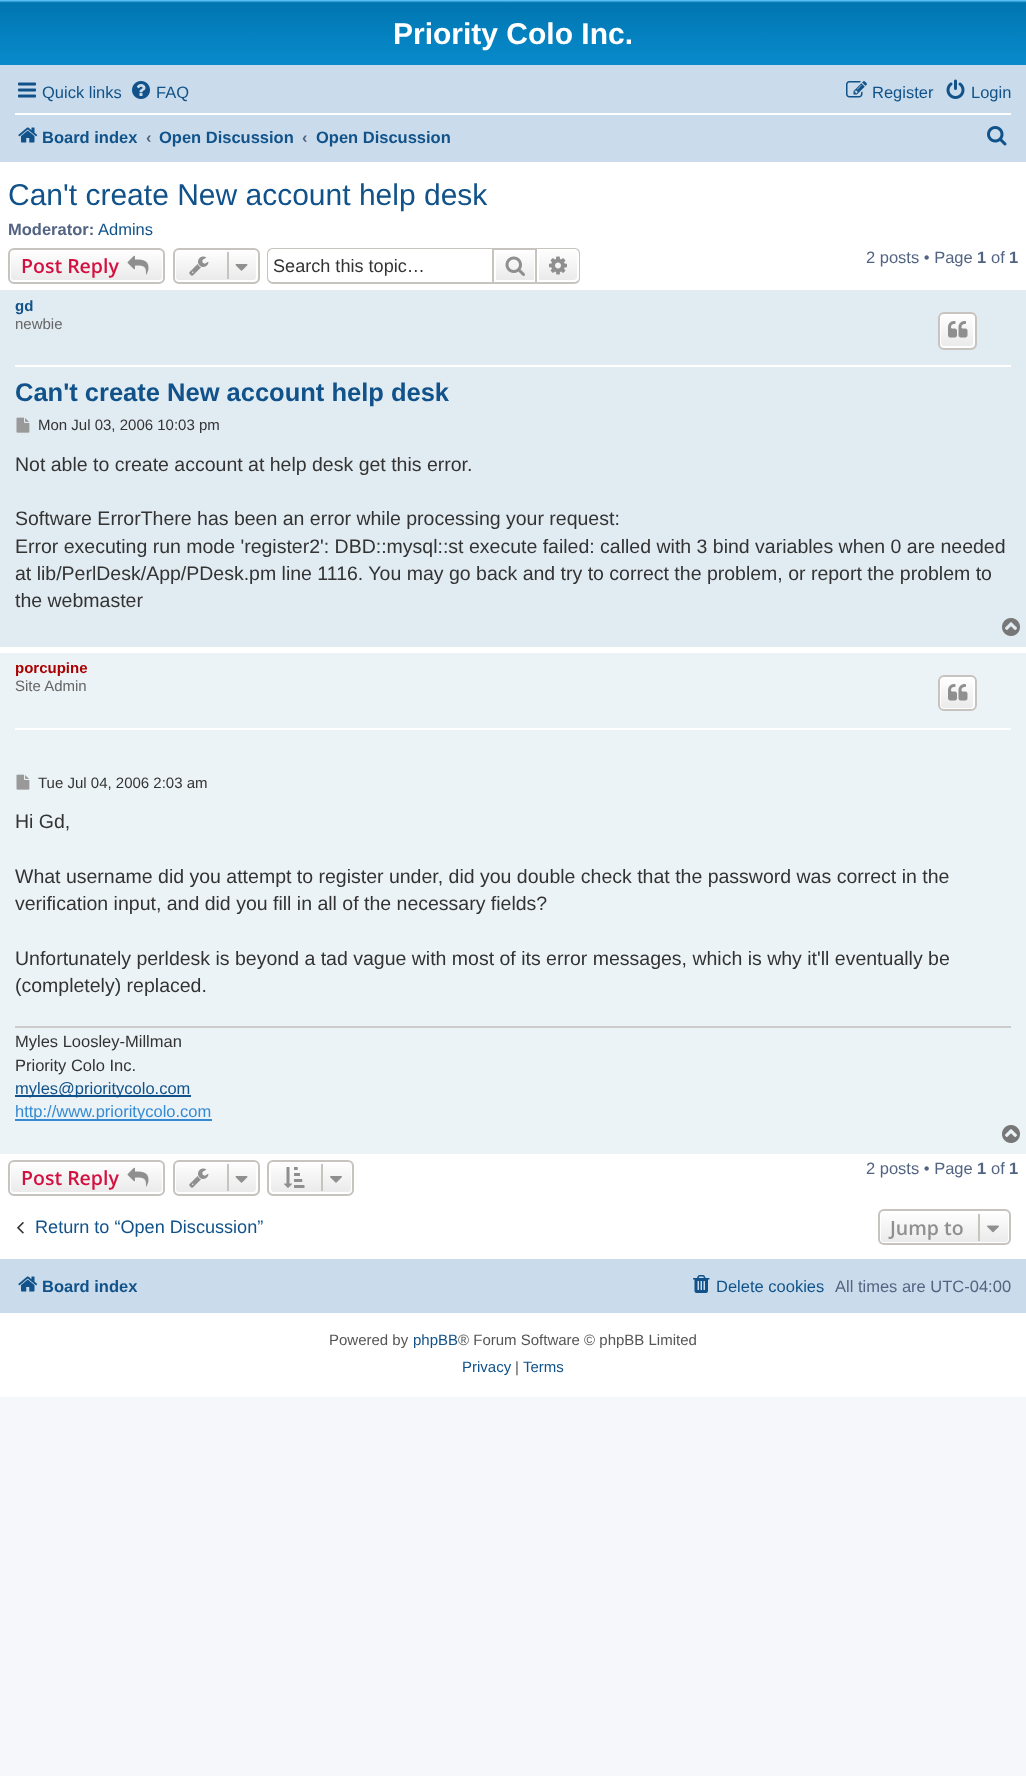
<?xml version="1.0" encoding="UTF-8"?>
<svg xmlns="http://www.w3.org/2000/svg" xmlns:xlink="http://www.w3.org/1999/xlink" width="1026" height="1776">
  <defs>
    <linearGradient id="g1" gradientUnits="userSpaceOnUse" x1="513" y1="0" x2="513" y2="138"><stop offset="0" stop-color="#6aceff" /><stop offset="0.02" stop-color="#0076b1" /><stop offset="1" stop-color="#12a3eb" /></linearGradient>
    <clipPath id="clip1"><rect x="8" y="248" width="157" height="36" rx="6" /></clipPath>
    <linearGradient id="g2" gradientUnits="userSpaceOnUse" x1="86" y1="249" x2="86" y2="282"><stop offset="0" stop-color="#ffffff" /><stop offset="1" stop-color="#e9e9e9" /></linearGradient>
    <clipPath id="clip2"><rect x="173" y="248" width="87" height="36" rx="6" /></clipPath>
    <linearGradient id="g3" gradientUnits="userSpaceOnUse" x1="216" y1="249" x2="216" y2="282"><stop offset="0" stop-color="#ffffff" /><stop offset="1" stop-color="#e9e9e9" /></linearGradient>
    <linearGradient id="g4" gradientUnits="userSpaceOnUse" x1="515" y1="249" x2="515" y2="282"><stop offset="0" stop-color="#ffffff" /><stop offset="1" stop-color="#e9e9e9" /></linearGradient>
    <linearGradient id="g5" gradientUnits="userSpaceOnUse" x1="558" y1="249" x2="558" y2="282"><stop offset="0" stop-color="#ffffff" /><stop offset="1" stop-color="#e9e9e9" /></linearGradient>
    <clipPath id="clip3"><rect x="938" y="312" width="39" height="38" rx="6" /></clipPath>
    <linearGradient id="g6" gradientUnits="userSpaceOnUse" x1="957" y1="314" x2="957" y2="348"><stop offset="0" stop-color="#ffffff" /><stop offset="1" stop-color="#e9e9e9" /></linearGradient>
    <clipPath id="clip4"><rect x="938" y="675" width="39" height="36" rx="6" /></clipPath>
    <linearGradient id="g7" gradientUnits="userSpaceOnUse" x1="957" y1="677" x2="957" y2="710"><stop offset="0" stop-color="#ffffff" /><stop offset="1" stop-color="#e9e9e9" /></linearGradient>
    <clipPath id="clip5"><rect x="8" y="1160" width="157" height="36" rx="6" /></clipPath>
    <linearGradient id="g8" gradientUnits="userSpaceOnUse" x1="86" y1="1161" x2="86" y2="1194"><stop offset="0" stop-color="#ffffff" /><stop offset="1" stop-color="#e9e9e9" /></linearGradient>
    <clipPath id="clip6"><rect x="173" y="1160" width="87" height="36" rx="6" /></clipPath>
    <linearGradient id="g9" gradientUnits="userSpaceOnUse" x1="216" y1="1161" x2="216" y2="1194"><stop offset="0" stop-color="#ffffff" /><stop offset="1" stop-color="#e9e9e9" /></linearGradient>
    <clipPath id="clip7"><rect x="267" y="1160" width="87" height="36" rx="6" /></clipPath>
    <linearGradient id="g10" gradientUnits="userSpaceOnUse" x1="311" y1="1161" x2="311" y2="1194"><stop offset="0" stop-color="#ffffff" /><stop offset="1" stop-color="#e9e9e9" /></linearGradient>
    <clipPath id="clip8"><rect x="878" y="1209" width="133" height="36" rx="6" /></clipPath>
    <linearGradient id="g11" gradientUnits="userSpaceOnUse" x1="944" y1="1211" x2="944" y2="1244"><stop offset="0" stop-color="#ffffff" /><stop offset="1" stop-color="#e9e9e9" /></linearGradient>
  </defs>
  <rect width="100%" height="100%" fill="#f5f7fa" />
  <rect y="162" width="1026" height="1235" fill="#ffffff" />
  <rect width="1026" height="65" fill="url(#g1)" />
  <rect y="65" width="1026" height="97" fill="#cadceb" />
  <image x="18" y="82" width="18" height="16" xlink:href="image1.png" />
  <image x="132" y="81" width="18" height="18" xlink:href="image2.png" />
  <image x="846" y="81" width="21" height="17" xlink:href="image3.png" />
  <image x="946" y="79" width="19" height="20" xlink:href="image4.png" />
  <rect x="15" y="113" width="996" height="2" fill="#ffffff" />
  <image x="18" y="127" width="20" height="16" xlink:href="image5.png" />
  <image x="987" y="126" width="20" height="20" xlink:href="image6.png" />
  <g clip-path="url(#clip1)">
    <rect x="8" y="249" width="157" height="33" fill="url(#g2)" />
  </g>
  <rect x="10" y="250" width="153" height="31" rx="4" fill="none" stroke="#ffffff" stroke-width="2" />
  <rect x="9" y="249" width="155" height="34" rx="5" fill="none" stroke="#c7c3bf" stroke-width="2" />
  <image x="127" y="255" width="22" height="20" xlink:href="image7.png" />
  <g clip-path="url(#clip2)">
    <rect x="173" y="249" width="87" height="33" fill="url(#g3)" />
  </g>
  <rect x="175" y="250" width="82" height="31" rx="4" fill="none" stroke="#ffffff" stroke-width="2" />
  <rect x="174" y="249" width="85" height="34" rx="5" fill="none" stroke="#c7c3bf" stroke-width="2" />
  <image x="189" y="256" width="20" height="20" xlink:href="image8.png" />
  <rect x="227" y="252" width="2" height="27" fill="#c7c3bf" />
  <image x="235" y="264" width="13" height="7" xlink:href="image9.png" />
  <path d="M 273 248 h 219 v 36 h -219 c -3 0 -6 -3 -6 -6 v -24 c 0 -4 3 -6 6 -6 z m 0 1 h 219 v 33 h -219 c -2 0 -5 -2 -5 -4 v -24 c 0 -3 3 -5 5 -5 z" fill="#c7c3bf" fill-rule="evenodd" />
  <rect x="496" y="253" width="38" height="27" fill="url(#g4)" />
  <rect x="493" y="249" width="43" height="34" fill="none" stroke="#c7c3bf" stroke-width="2" />
  <image x="505" y="256" width="20" height="20" xlink:href="image10.png" />
  <path d="M 538 250 h 36 c 2 0 4 2 4 4 v 23 c 0 2 -2 4 -4 4 h -36 z" fill="url(#g5)" stroke="#ffffff" stroke-width="2" />
  <path d="M 537 248 h 37 c 4 0 6 2 6 6 v 24 c 0 3 -2 6 -6 6 h -37 z m 0 1 h 37 c 3 0 5 2 5 5 v 24 c 0 2 -2 4 -5 4 h -37 z" fill="#c7c3bf" fill-rule="evenodd" />
  <image x="549" y="256" width="18" height="19" xlink:href="image11.png" />
  <rect y="290" width="1026" height="357" fill="#e1ebf2" />
  <rect x="15" y="365" width="996" height="2" fill="#ffffff" />
  <g clip-path="url(#clip3)">
    <rect x="938" y="314" width="39" height="34" fill="url(#g6)" />
  </g>
  <rect x="940" y="315" width="34" height="32" rx="4" fill="none" stroke="#ffffff" stroke-width="2" />
  <rect x="939" y="313" width="37" height="36" rx="5" fill="none" stroke="#c7c3bf" stroke-width="2" />
  <image x="948" y="321" width="20" height="17" xlink:href="image12.png" />
  <image x="16" y="417" width="14" height="16" xlink:href="image13.png" />
  <image x="1002" y="618" width="18" height="18" xlink:href="image14.png" />
  <rect y="653" width="1026" height="501" fill="#ecf3f7" />
  <rect x="15" y="728" width="996" height="2" fill="#ffffff" />
  <g clip-path="url(#clip4)">
    <rect x="938" y="677" width="39" height="33" fill="url(#g7)" />
  </g>
  <rect x="940" y="678" width="34" height="31" rx="4" fill="none" stroke="#ffffff" stroke-width="2" />
  <rect x="939" y="676" width="37" height="34" rx="5" fill="none" stroke="#c7c3bf" stroke-width="2" />
  <image x="948" y="684" width="20" height="17" xlink:href="image15.png" />
  <image x="16" y="774" width="14" height="16" xlink:href="image16.png" />
  <rect x="15" y="1026" width="996" height="2" fill="#cccccc" />
  <rect x="15" y="1095" width="176" height="2" fill="#105289" />
  <rect x="15" y="1119" width="197" height="2" fill="#368ad2" />
  <image x="1002" y="1125" width="18" height="18" xlink:href="image17.png" />
  <g clip-path="url(#clip5)">
    <rect x="8" y="1161" width="157" height="33" fill="url(#g8)" />
  </g>
  <rect x="10" y="1162" width="153" height="31" rx="4" fill="none" stroke="#ffffff" stroke-width="2" />
  <rect x="9" y="1161" width="155" height="34" rx="5" fill="none" stroke="#c7c3bf" stroke-width="2" />
  <image x="127" y="1167" width="22" height="20" xlink:href="image7.png" />
  <g clip-path="url(#clip6)">
    <rect x="173" y="1161" width="87" height="33" fill="url(#g9)" />
  </g>
  <rect x="175" y="1162" width="82" height="31" rx="4" fill="none" stroke="#ffffff" stroke-width="2" />
  <rect x="174" y="1161" width="85" height="34" rx="5" fill="none" stroke="#c7c3bf" stroke-width="2" />
  <image x="189" y="1168" width="20" height="20" xlink:href="image8.png" />
  <rect x="227" y="1164" width="2" height="27" fill="#c7c3bf" />
  <image x="235" y="1176" width="13" height="7" xlink:href="image9.png" />
  <g clip-path="url(#clip7)">
    <rect x="267" y="1161" width="87" height="33" fill="url(#g10)" />
  </g>
  <rect x="270" y="1162" width="82" height="31" rx="4" fill="none" stroke="#ffffff" stroke-width="2" />
  <rect x="268" y="1161" width="85" height="34" rx="5" fill="none" stroke="#c7c3bf" stroke-width="2" />
  <image x="284" y="1167" width="21" height="21" xlink:href="image18.png" />
  <rect x="321" y="1164" width="2" height="27" fill="#c7c3bf" />
  <image x="330" y="1176" width="12" height="7" xlink:href="image19.png" />
  <image x="17" y="1222" width="7" height="12" xlink:href="image20.png" />
  <g clip-path="url(#clip8)">
    <rect x="878" y="1211" width="133" height="33" fill="url(#g11)" />
  </g>
  <rect x="880" y="1212" width="129" height="31" rx="4" fill="none" stroke="#ffffff" stroke-width="2" />
  <rect x="879" y="1210" width="131" height="34" rx="5" fill="none" stroke="#c7c3bf" stroke-width="2" />
  <rect x="978" y="1214" width="2" height="27" fill="#c7c3bf" />
  <image x="987" y="1225" width="12" height="8" xlink:href="image21.png" />
  <rect y="1259" width="1026" height="54" fill="#cadceb" />
  <image x="18" y="1276" width="20" height="16" xlink:href="image5.png" />
  <image x="693" y="1275" width="17" height="18" xlink:href="image22.png" />
  <text x="393" y="44" style="font-family: Liberation Sans; font-size: 30px; font-weight: bold; fill: #ffffff">Priority Colo Inc.</text>
  <text x="42" y="98" style="font-family: Liberation Sans; font-size: 16.5px; fill: #105289">Quick links</text>
  <text x="156" y="98" style="font-family: Liberation Sans; font-size: 16.5px; fill: #105289">FAQ</text>
  <text x="872" y="98" style="font-family: Liberation Sans; font-size: 16.5px; fill: #105289">Register</text>
  <text x="971" y="98" style="font-family: Liberation Sans; font-size: 16.5px; fill: #105289">Login</text>
  <text x="42" y="143" style="font-family: Liberation Sans; font-size: 16.5px; font-weight: bold; fill: #105289">Board index</text>
  <text x="146" y="143" style="font-family: Liberation Sans; font-size: 16.5px; font-weight: bold; fill: #536482">‹</text>
  <text x="159" y="143" style="font-family: Liberation Sans; font-size: 16.5px; font-weight: bold; fill: #105289">Open Discussion</text>
  <text x="302" y="143" style="font-family: Liberation Sans; font-size: 16.5px; font-weight: bold; fill: #536482">‹</text>
  <text x="316" y="143" style="font-family: Liberation Sans; font-size: 16.5px; font-weight: bold; fill: #105289">Open Discussion</text>
  <text x="8" y="205" style="font-family: Liberation Sans; font-size: 30px; fill: #105289">Can't create New account help desk</text>
  <text x="8" y="235" style="font-family: Liberation Sans; font-size: 16.5px; font-weight: bold; fill: #536482">Moderator:</text>
  <text x="98" y="235" style="font-family: Liberation Sans; font-size: 16.5px; fill: #105289">Admins</text>
  <text x="21" y="273" style="font-family: Open Sans; font-size: 19.5px; font-weight: 600; fill: #d31141">Post Reply</text>
  <text x="273" y="272" style="font-family: Liberation Sans; font-size: 18.1px; fill: #333333">Search this topic…</text>
  <text x="866" y="263" style="font-family: Liberation Sans; font-size: 16.5px; fill: #536482">2 posts • Page</text>
  <text x="977" y="263" style="font-family: Liberation Sans; font-size: 16.5px; font-weight: bold; fill: #536482">1</text>
  <text x="991" y="263" style="font-family: Liberation Sans; font-size: 16.5px; fill: #536482">of</text>
  <text x="1009" y="263" style="font-family: Liberation Sans; font-size: 16.5px; font-weight: bold; fill: #536482">1</text>
  <text x="15" y="311" style="font-family: Liberation Sans; font-size: 15px; font-weight: bold; fill: #105289">gd</text>
  <text x="15" y="329" style="font-family: Liberation Sans; font-size: 15px; fill: #666666">newbie</text>
  <text x="15" y="401" style="font-family: Liberation Sans; font-size: 25.5px; font-weight: bold; fill: #105289">Can't create New account help desk</text>
  <text x="38" y="430" style="font-family: Liberation Sans; font-size: 15px; fill: #333333">Mon Jul 03, 2006 10:03 pm</text>
  <text x="15" y="471" style="font-family: Liberation Sans; font-size: 19.5px; fill: #333333">Not able to create account at help desk get this error.</text>
  <text x="15" y="525" style="font-family: Liberation Sans; font-size: 19.5px; fill: #333333">Software ErrorThere has been an error while processing your request:</text>
  <text x="15" y="553" style="font-family: Liberation Sans; font-size: 19.5px; fill: #333333">Error executing run mode 'register2': DBD::mysql::st execute failed: called with 3 bind variables when 0 are needed</text>
  <text x="15" y="580" style="font-family: Liberation Sans; font-size: 19.5px; fill: #333333">at lib/PerlDesk/App/PDesk.pm line 1116. You may go back and try to correct the problem, or report the problem to</text>
  <text x="15" y="607" style="font-family: Liberation Sans; font-size: 19.5px; fill: #333333">the webmaster</text>
  <text x="15" y="673" style="font-family: Liberation Sans; font-size: 15px; font-weight: bold; fill: #aa0000">porcupine</text>
  <text x="15" y="691" style="font-family: Liberation Sans; font-size: 15px; fill: #666666">Site Admin</text>
  <text x="38" y="788" style="font-family: Liberation Sans; font-size: 15px; fill: #333333">Tue Jul 04, 2006 2:03 am</text>
  <text x="15" y="828" style="font-family: Liberation Sans; font-size: 19.5px; fill: #333333">Hi Gd,</text>
  <text x="15" y="883" style="font-family: Liberation Sans; font-size: 19.5px; fill: #333333">What username did you attempt to register under, did you double check that the password was correct in the</text>
  <text x="15" y="910" style="font-family: Liberation Sans; font-size: 19.5px; fill: #333333">verification input, and did you fill in all of the necessary fields?</text>
  <text x="15" y="965" style="font-family: Liberation Sans; font-size: 19.5px; fill: #333333">Unfortunately perldesk is beyond a tad vague with most of its error messages, which is why it'll eventually be</text>
  <text x="15" y="992" style="font-family: Liberation Sans; font-size: 19.5px; fill: #333333">(completely) replaced.</text>
  <text x="15" y="1047" style="font-family: Liberation Sans; font-size: 16.5px; fill: #333333">Myles Loosley-Millman</text>
  <text x="15" y="1071" style="font-family: Liberation Sans; font-size: 16.5px; fill: #333333">Priority Colo Inc.</text>
  <text x="15" y="1094" style="font-family: Liberation Sans; font-size: 16.5px; fill: #105289">myles@prioritycolo.com</text>
  <text x="15" y="1117" style="font-family: Liberation Sans; font-size: 16.5px; fill: #368ad2">http://www.prioritycolo.com</text>
  <text x="21" y="1185" style="font-family: Open Sans; font-size: 19.5px; font-weight: 600; fill: #d31141">Post Reply</text>
  <text x="866" y="1174" style="font-family: Liberation Sans; font-size: 16.5px; fill: #536482">2 posts • Page</text>
  <text x="977" y="1174" style="font-family: Liberation Sans; font-size: 16.5px; font-weight: bold; fill: #536482">1</text>
  <text x="991" y="1174" style="font-family: Liberation Sans; font-size: 16.5px; fill: #536482">of</text>
  <text x="1009" y="1174" style="font-family: Liberation Sans; font-size: 16.5px; font-weight: bold; fill: #536482">1</text>
  <text x="35" y="1233" style="font-family: Liberation Sans; font-size: 18.1px; fill: #105289">Return to “Open Discussion”</text>
  <text x="890" y="1235" style="font-family: Open Sans; font-size: 19.5px; font-weight: 600; fill: #8f8f8f">Jump to</text>
  <text x="42" y="1292" style="font-family: Liberation Sans; font-size: 16.5px; font-weight: bold; fill: #105289">Board index</text>
  <text x="716" y="1292" style="font-family: Liberation Sans; font-size: 16.5px; fill: #105289">Delete cookies</text>
  <text x="835" y="1292" style="font-family: Liberation Sans; font-size: 16.5px; fill: #536482">All times are UTC-04:00</text>
  <text x="329" y="1345" style="font-family: Liberation Sans; font-size: 15px; fill: #555555">Powered by</text>
  <text x="413" y="1345" style="font-family: Liberation Sans; font-size: 15px; fill: #105289">phpBB</text>
  <text x="458" y="1345" style="font-family: Liberation Sans; font-size: 15px; fill: #555555">® Forum Software © phpBB Limited</text>
  <text x="462" y="1372" style="font-family: Liberation Sans; font-size: 15px; fill: #105289">Privacy</text>
  <text x="515" y="1372" style="font-family: Liberation Sans; font-size: 15px; fill: #555555">|</text>
  <text x="523" y="1372" style="font-family: Liberation Sans; font-size: 15px; fill: #105289">Terms</text>
</svg>
